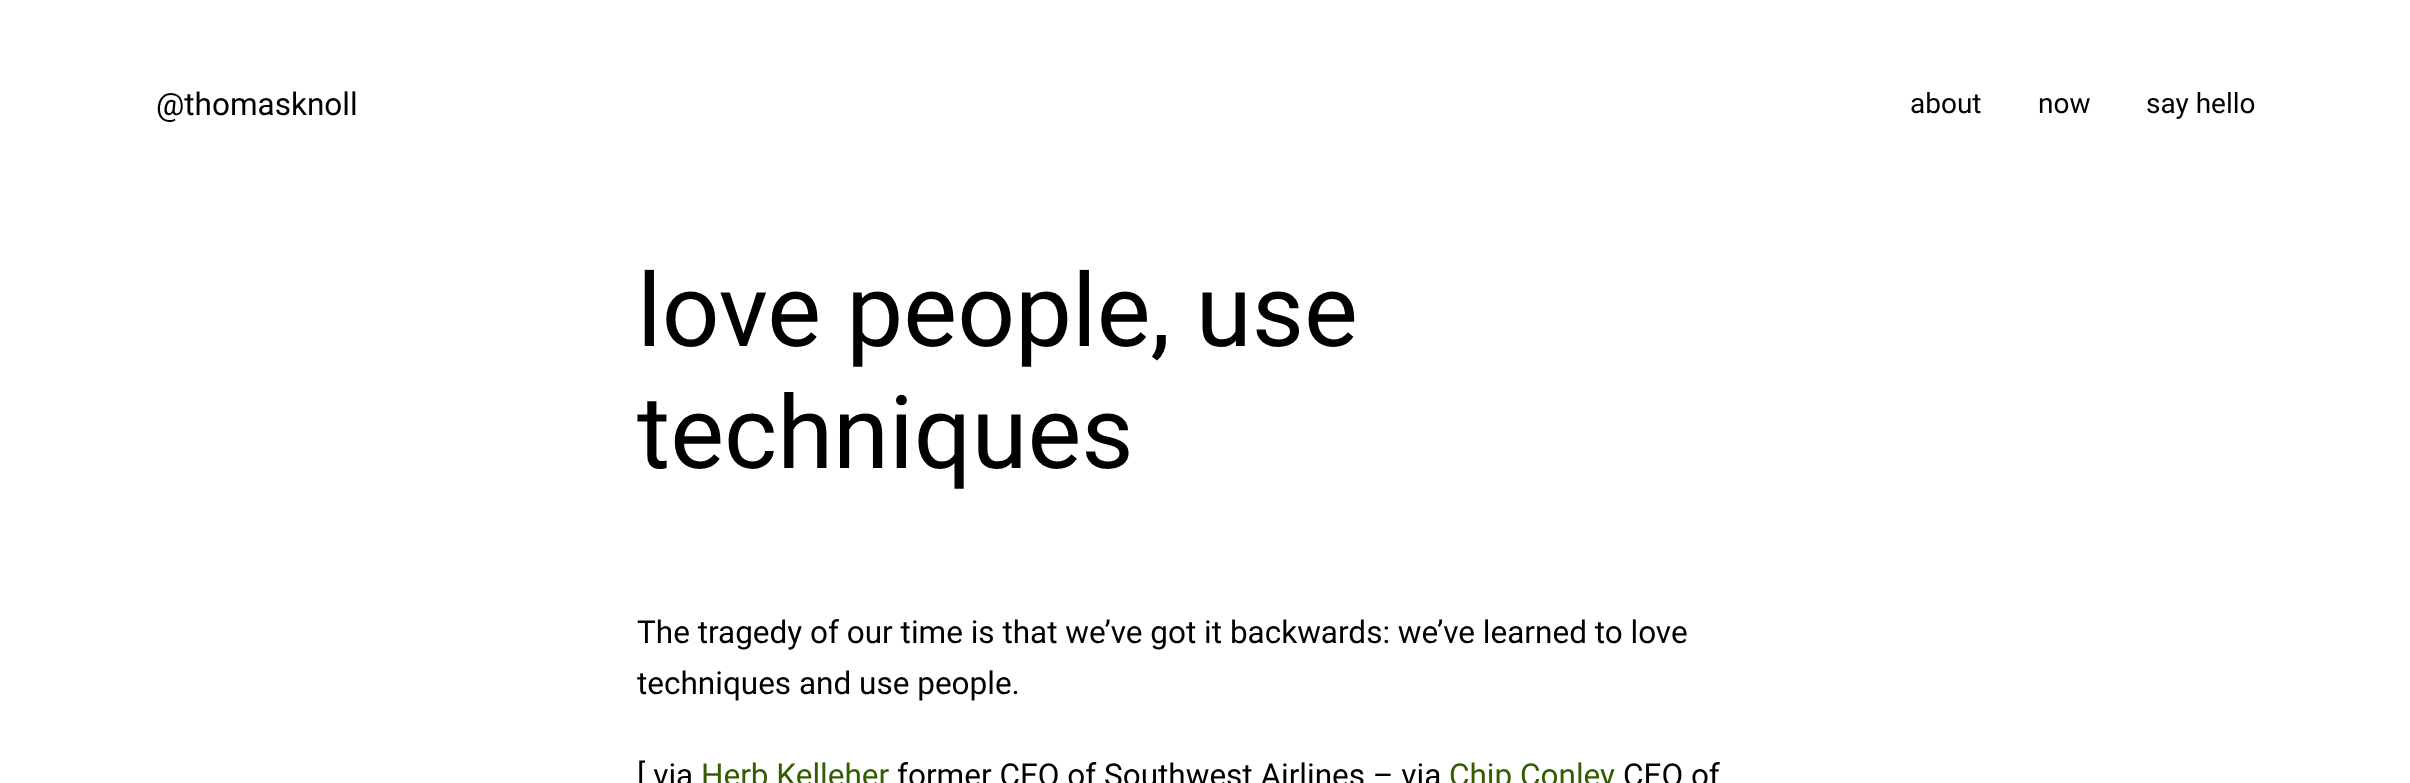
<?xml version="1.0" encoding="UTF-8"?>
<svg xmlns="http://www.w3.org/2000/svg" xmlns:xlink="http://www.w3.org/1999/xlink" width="2410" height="783">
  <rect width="100%" height="100%" fill="#ffffff" />
  <text x="156" y="115" style="font-family: Roboto; font-size: 31.5px; fill: #000000">@thomasknoll</text>
  <text x="1910" y="113" style="font-family: Roboto; font-size: 28px; fill: #000000">about</text>
  <text x="2038" y="113" style="font-family: Roboto; font-size: 28px; fill: #000000">now</text>
  <text x="2146" y="113" style="font-family: Roboto; font-size: 28px; fill: #000000">say hello</text>
  <text x="637" y="346" style="font-family: Roboto; font-size: 101.5px; fill: #000000">love people, use</text>
  <text x="637" y="468" style="font-family: Roboto; font-size: 101.5px; fill: #000000">techniques</text>
  <text x="637" y="643" style="font-family: Roboto; font-size: 31.5px; fill: #000000">The tragedy of our time is that we’ve got it backwards: we’ve learned to love</text>
  <text x="637" y="694" style="font-family: Roboto; font-size: 31.5px; fill: #000000">techniques and use people.</text>
  <text x="637" y="786" style="font-family: Roboto; font-size: 31.5px; fill: #000000">[ via</text>
  <text x="701" y="786" style="font-family: Roboto; font-size: 31.5px; fill: #345c00">Herb Kelleher</text>
  <text x="897" y="786" style="font-family: Roboto; font-size: 31.5px; fill: #000000">former CEO of Southwest Airlines – via</text>
  <text x="1449" y="786" style="font-family: Roboto; font-size: 31.5px; fill: #345c00">Chip Conley</text>
  <text x="1623" y="786" style="font-family: Roboto; font-size: 31.5px; fill: #000000">CEO of</text>
</svg>
